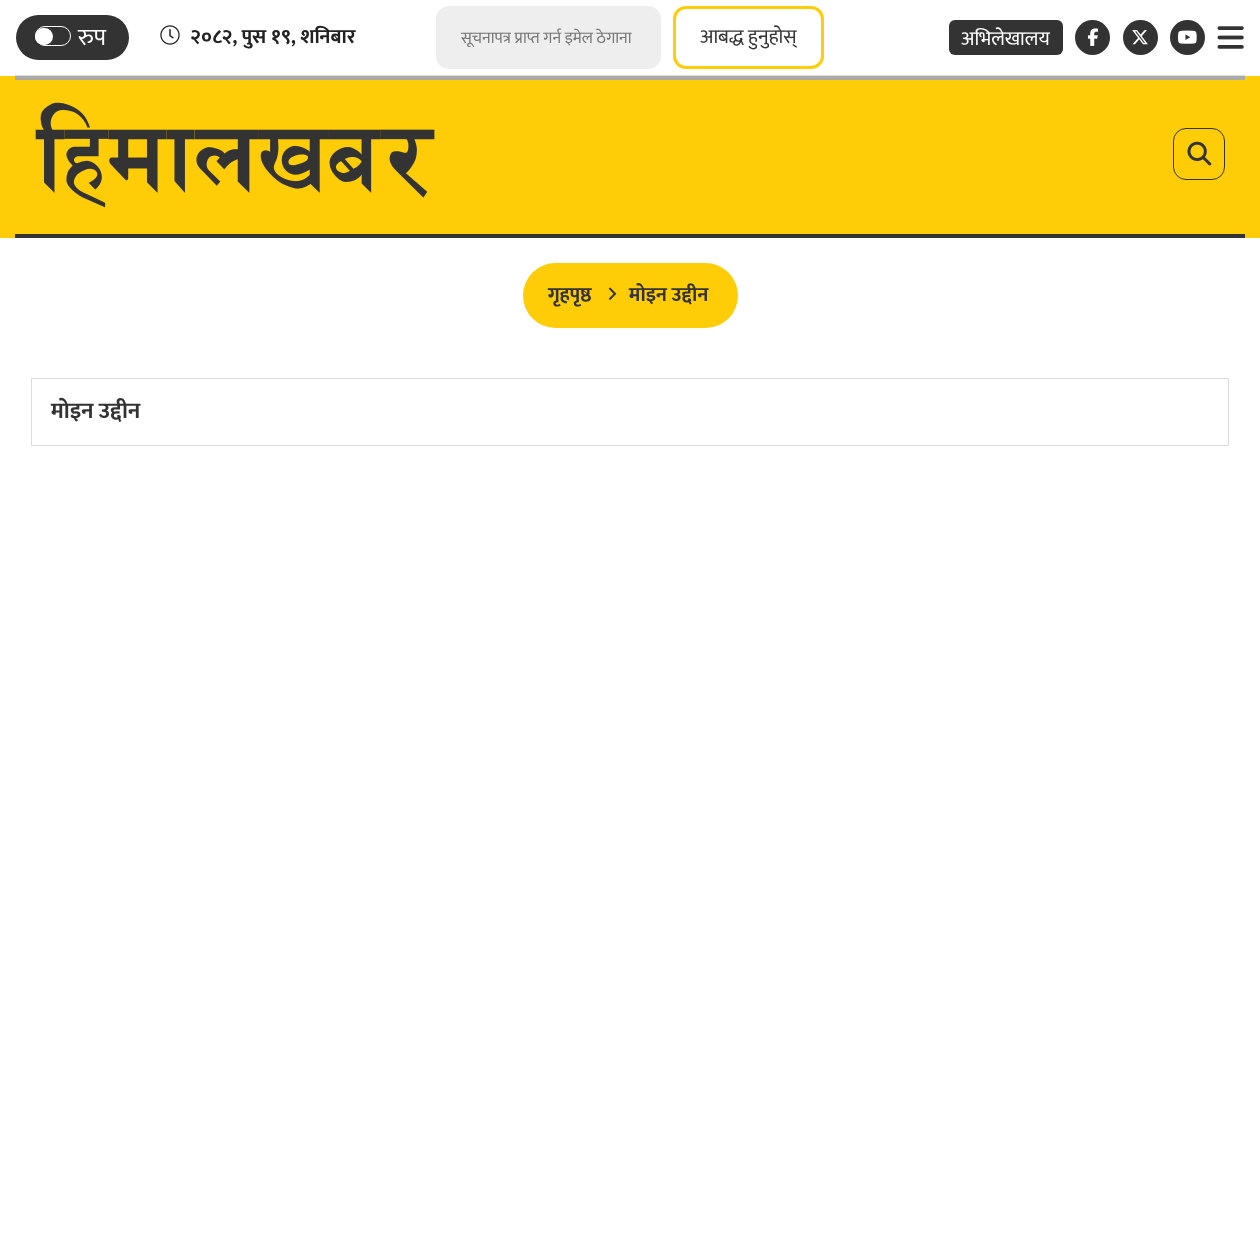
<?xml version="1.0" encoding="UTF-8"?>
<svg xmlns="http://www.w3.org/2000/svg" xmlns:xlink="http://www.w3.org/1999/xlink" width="1260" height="1251">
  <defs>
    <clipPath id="clip1"><rect x="461" y="24" width="175" height="27" /></clipPath>
  </defs>
  <rect width="100%" height="100%" fill="#ffffff" />
  <rect x="15" y="75" width="1230" height="1" fill="#dddddd" />
  <rect x="16" y="15" width="113" height="45" rx="22.5" fill="#333333" />
  <rect x="35" y="28" width="18" height="17" rx="8.5" fill="#ffffff" />
  <rect x="35.5" y="26.5" width="35" height="19" rx="9.5" fill="none" stroke="#ffffff" />
  <image x="160" y="25" width="20" height="20" xlink:href="image1.png" />
  <rect x="436" y="6" width="225" height="63" rx="13" fill="#eeeeee" />
  <rect x="674.5" y="7.5" width="148" height="60" rx="11.5" fill="none" stroke="#fecd07" stroke-width="3" />
  <rect x="949" y="20" width="114" height="35" rx="6" fill="#333333" />
  <circle cx="1092.5" cy="37.5" r="17.5" fill="#333333" />
  <image x="1087" y="28" width="11" height="18" xlink:href="image2.png" />
  <circle cx="1140.5" cy="37.5" r="17.5" fill="#333333" />
  <image x="1132" y="30" width="16" height="15" xlink:href="image3.png" />
  <circle cx="1187.5" cy="37.5" r="17.5" fill="#333333" />
  <image x="1178" y="30" width="19" height="14" xlink:href="image4.png" />
  <image x="1217" y="26" width="27" height="23" xlink:href="image5.png" />
  <rect y="76" width="1260" height="162" fill="#fecd07" />
  <rect x="15" y="76" width="1230" height="4" fill="#aaaaaa" />
  <rect x="15" y="234" width="1230" height="4" fill="#333333" />
  <image x="35" y="102" width="400" height="106" xlink:href="image6.png" />
  <rect x="1173.5" y="128.5" width="51" height="51" rx="12.5" fill="none" stroke="#333333" />
  <image x="1187" y="141" width="25" height="25" xlink:href="image7.png" />
  <rect x="523" y="263" width="215" height="65" rx="32.5" fill="#fecd07" />
  <image x="608" y="287" width="9" height="13" xlink:href="image8.png" />
  <rect x="31.5" y="378.5" width="1197" height="67" fill="none" stroke="#dddddd" />
  <text x="78" y="45" style="font-family: Mukta; font-size: 24px; fill: #ffffff">रुप</text>
  <text x="190" y="43" style="font-family: Mukta; font-size: 20px; font-weight: bold; fill: #222222">२०८२, पुस १९, शनिबार</text>
  <g clip-path="url(#clip1)">
    <text x="461" y="43" style="font-family: Mukta; font-size: 16.25px; fill: #757575">सूचनापत्र प्राप्त गर्न इमेल ठेगाना</text>
  </g>
  <text x="700" y="43" style="font-family: Mukta; font-size: 20px; fill: #333333">आबद्ध हुनुहोस्</text>
  <text x="961" y="45" style="font-family: Mukta; font-size: 20px; fill: #ffffff">अभिलेखालय</text>
  <text x="548" y="301" style="font-family: Mukta; font-size: 20px; font-weight: bold; fill: #333333">गृहपृष्ठ</text>
  <text x="629" y="301" style="font-family: Mukta; font-size: 20px; font-weight: bold; fill: #333333">मोइन उद्दीन</text>
  <text x="51" y="418" style="font-family: Mukta; font-size: 22.5px; font-weight: bold; fill: #333333">मोइन उद्दीन</text>
</svg>
